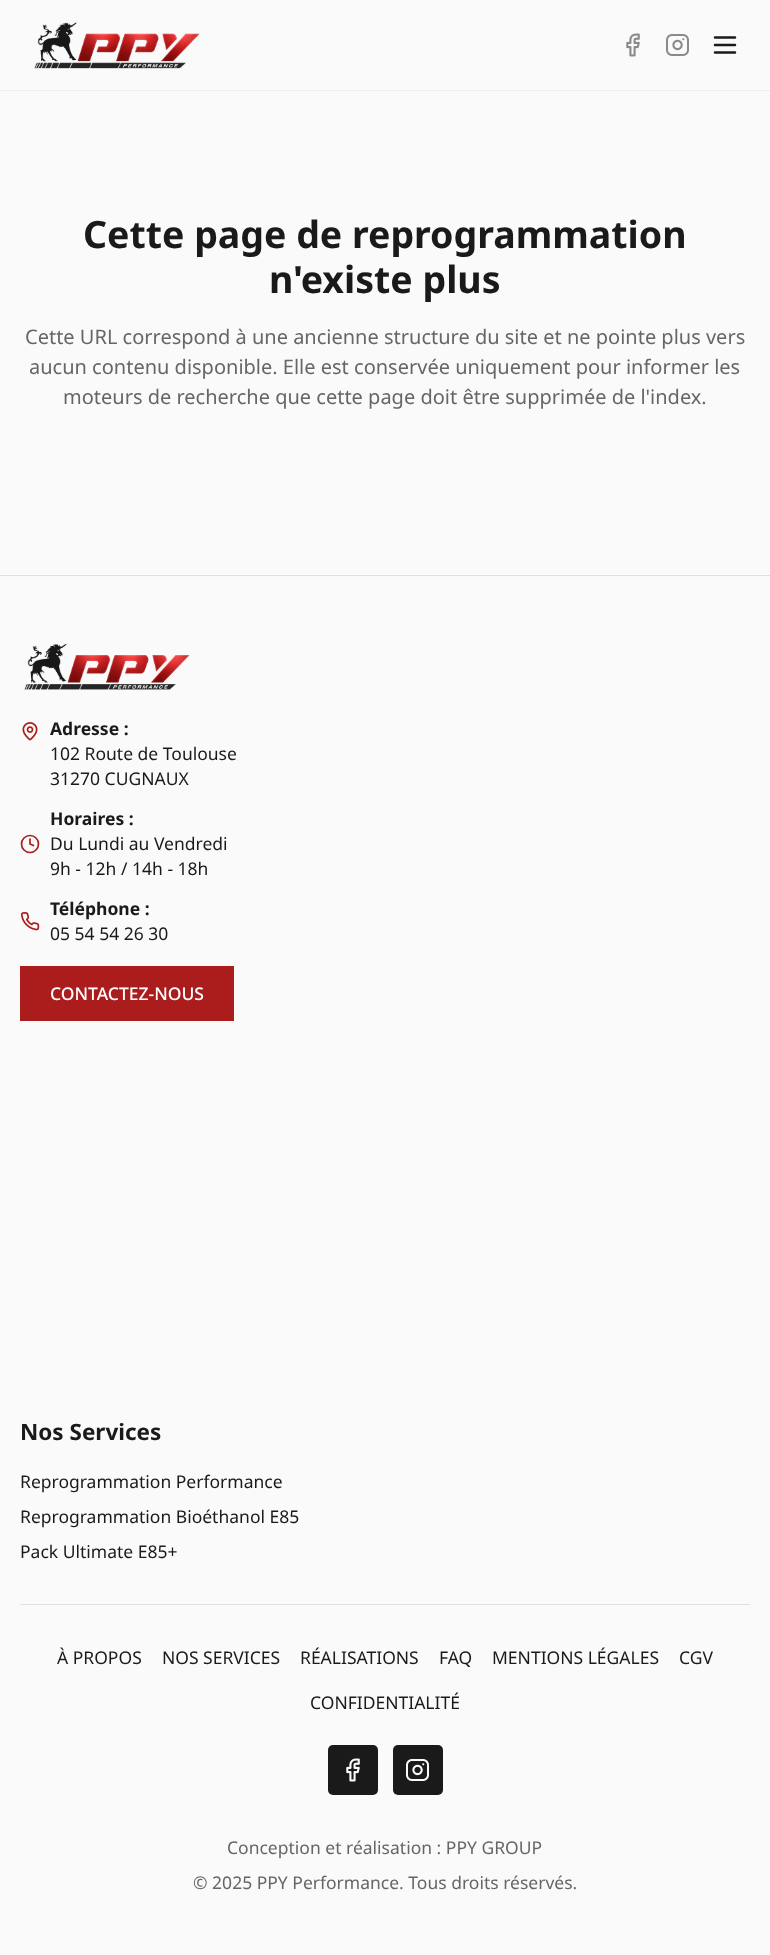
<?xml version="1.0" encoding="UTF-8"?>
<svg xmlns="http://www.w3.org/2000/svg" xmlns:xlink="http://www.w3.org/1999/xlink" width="770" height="1955">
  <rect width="100%" height="100%" fill="#fafafa" />
  <rect y="90" width="770" height="1" fill="#ededed" />
  <image x="34" y="22" width="166" height="47" xlink:href="image1.png" />
  <image x="626" y="33" width="14" height="24" xlink:href="image2.png" />
  <image x="666" y="34" width="23" height="22" xlink:href="image3.png" />
  <path d="M 715 45 h 20 m -20 -7.5 h 20 m -20 15 h 20" fill="none" stroke="#1a1a1a" stroke-width="2.5" stroke-linecap="round" stroke-linejoin="round" />
  <rect y="575" width="770" height="1" fill="#e0e0e0" />
  <image x="24" y="643" width="166" height="47" xlink:href="image4.png" />
  <image x="22" y="722" width="16" height="19" xlink:href="image5.png" />
  <circle cx="30" cy="844" r="8.5" fill="none" stroke="#ab1c1c" stroke-width="1.7" />
  <path d="M 30 839 v 5 l 3.5 1.5" fill="none" stroke="#ab1c1c" stroke-width="1.7" stroke-linecap="round" stroke-linejoin="round" />
  <image x="20" y="912" width="20" height="19" xlink:href="image6.png" />
  <rect x="20" y="966" width="214" height="55" fill="#ab1c1c" />
  <rect x="20" y="1604" width="730" height="1" fill="#e0e0e0" />
  <rect x="328" y="1745" width="50" height="50" rx="5" fill="#1a1a1a" />
  <image x="346" y="1758" width="14" height="24" xlink:href="image7.png" />
  <rect x="393" y="1745" width="50" height="50" rx="5" fill="#1a1a1a" />
  <image x="406" y="1759" width="23" height="22" xlink:href="image8.png" />
  <text x="83" y="248" style="font-family: Noto Sans; font-size: 37.5px; font-weight: bold; fill: #1a1a1a">Cette page de reprogrammation</text>
  <text x="269" y="293" style="font-family: Noto Sans; font-size: 37.5px; font-weight: bold; fill: #1a1a1a">n'existe plus</text>
  <text x="25" y="344" style="font-family: Noto Sans; font-size: 20px; fill: #666666">Cette URL correspond à une ancienne structure du site et ne pointe plus vers</text>
  <text x="29" y="374" style="font-family: Noto Sans; font-size: 20px; fill: #666666">aucun contenu disponible. Elle est conservée uniquement pour informer les</text>
  <text x="63" y="404" style="font-family: Noto Sans; font-size: 20px; fill: #666666">moteurs de recherche que cette page doit être supprimée de l'index.</text>
  <text x="50" y="735" style="font-family: Noto Sans; font-size: 17.5px; font-weight: bold; fill: #1a1a1a">Adresse :</text>
  <text x="50" y="760" style="font-family: Noto Sans; font-size: 17.5px; fill: #1a1a1a">102 Route de Toulouse</text>
  <text x="50" y="785" style="font-family: Noto Sans; font-size: 17.5px; fill: #1a1a1a">31270 CUGNAUX</text>
  <text x="50" y="825" style="font-family: Noto Sans; font-size: 17.5px; font-weight: bold; fill: #1a1a1a">Horaires :</text>
  <text x="50" y="850" style="font-family: Noto Sans; font-size: 17.5px; fill: #1a1a1a">Du Lundi au Vendredi</text>
  <text x="50" y="875" style="font-family: Noto Sans; font-size: 17.5px; fill: #1a1a1a">9h - 12h / 14h - 18h</text>
  <text x="50" y="915" style="font-family: Noto Sans; font-size: 17.5px; font-weight: bold; fill: #1a1a1a">Téléphone :</text>
  <text x="50" y="940" style="font-family: Noto Sans; font-size: 17.5px; fill: #1a1a1a">05 54 54 26 30</text>
  <text x="50" y="1000" style="font-family: Noto Sans; font-size: 17.5px; font-weight: 500; fill: #ffffff">CONTACTEZ-NOUS</text>
  <text x="20" y="1440" style="font-family: Noto Sans; font-size: 22.5px; font-weight: bold; fill: #1a1a1a">Nos Services</text>
  <text x="20" y="1488" style="font-family: Noto Sans; font-size: 17.5px; fill: #1a1a1a">Reprogrammation Performance</text>
  <text x="20" y="1523" style="font-family: Noto Sans; font-size: 17.5px; fill: #1a1a1a">Reprogrammation Bioéthanol E85</text>
  <text x="20" y="1558" style="font-family: Noto Sans; font-size: 17.5px; fill: #1a1a1a">Pack Ultimate E85+</text>
  <text x="57" y="1664" style="font-family: Noto Sans; font-size: 17.5px; fill: #1a1a1a">À PROPOS</text>
  <text x="162" y="1664" style="font-family: Noto Sans; font-size: 17.5px; fill: #1a1a1a">NOS SERVICES</text>
  <text x="300" y="1664" style="font-family: Noto Sans; font-size: 17.5px; fill: #1a1a1a">RÉALISATIONS</text>
  <text x="439" y="1664" style="font-family: Noto Sans; font-size: 17.5px; fill: #1a1a1a">FAQ</text>
  <text x="492" y="1664" style="font-family: Noto Sans; font-size: 17.5px; fill: #1a1a1a">MENTIONS LÉGALES</text>
  <text x="679" y="1664" style="font-family: Noto Sans; font-size: 17.5px; fill: #1a1a1a">CGV</text>
  <text x="310" y="1709" style="font-family: Noto Sans; font-size: 17.5px; fill: #1a1a1a">CONFIDENTIALITÉ</text>
  <text x="227" y="1854" style="font-family: Noto Sans; font-size: 17.5px; fill: #666666">Conception et réalisation : PPY GROUP</text>
  <text x="193" y="1889" style="font-family: Noto Sans; font-size: 17.5px; fill: #666666">© 2025 PPY Performance. Tous droits réservés.</text>
</svg>
